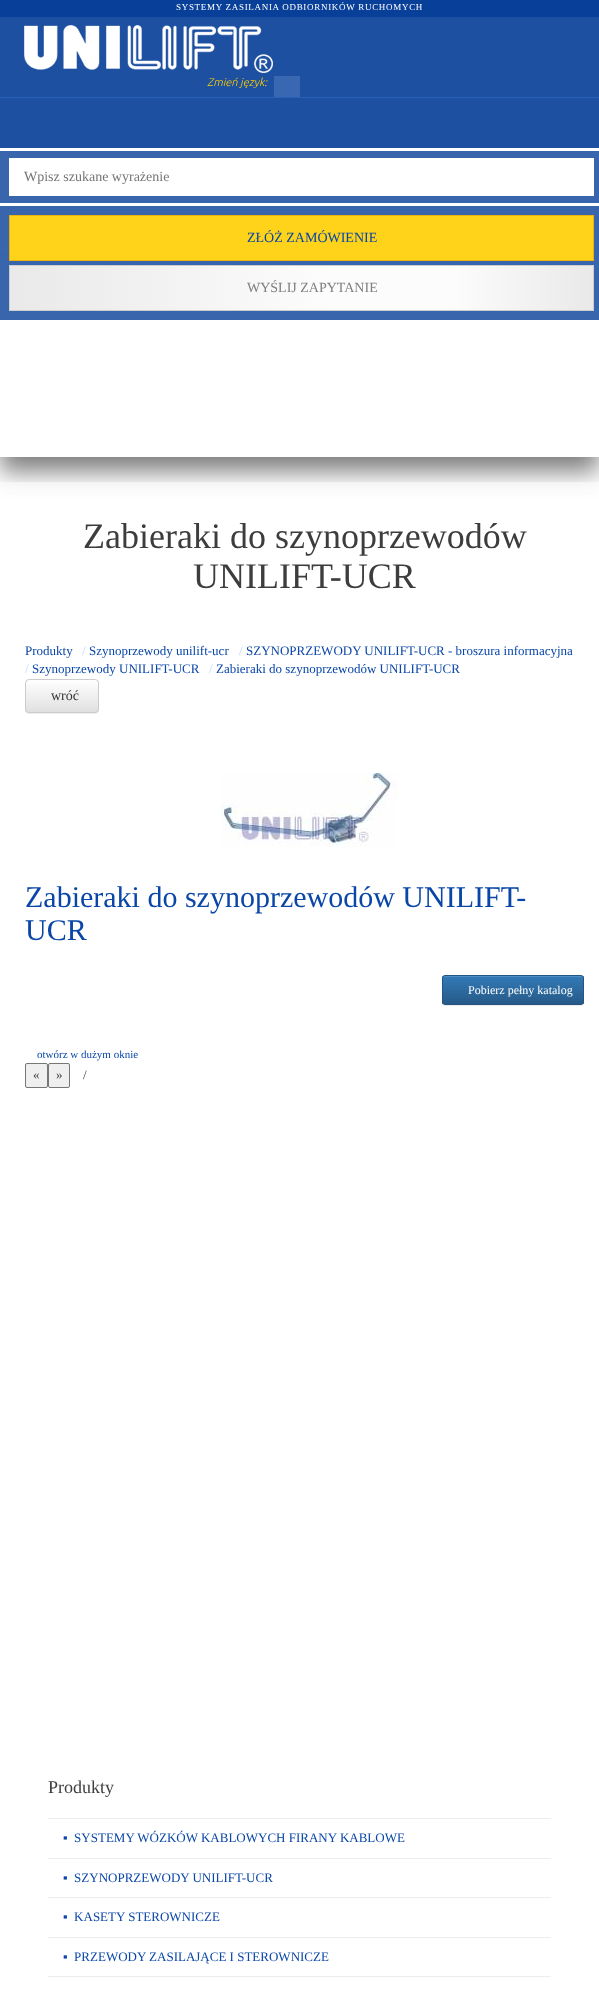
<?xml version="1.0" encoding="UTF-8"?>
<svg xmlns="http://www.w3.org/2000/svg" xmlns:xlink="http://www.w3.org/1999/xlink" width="599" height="1991">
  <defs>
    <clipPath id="clip1"><path d="M 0 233 h 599 v 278 h -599 z m 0 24 h 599 v 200 h -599 z" clip-rule="evenodd" /></clipPath>
    <linearGradient id="g1" gradientUnits="userSpaceOnUse" x1="10" y1="288" x2="593" y2="288"><stop offset="0" stop-color="#e9e9e9" /><stop offset="0.54" stop-color="#fcfcfc" /><stop offset="0.76" stop-color="#fcfcfc" /><stop offset="1" stop-color="#e9e9e9" /></linearGradient>
    <clipPath id="clip2"><rect x="25" y="679" width="74" height="34" rx="4" /></clipPath>
    <linearGradient id="g2" gradientUnits="userSpaceOnUse" x1="62" y1="680" x2="62" y2="712"><stop offset="0" stop-color="#ffffff" /><stop offset="1" stop-color="#e0e0e0" /></linearGradient>
    <clipPath id="clip3"><rect x="442" y="975" width="142" height="30" rx="3" /></clipPath>
    <linearGradient id="g3" gradientUnits="userSpaceOnUse" x1="513" y1="976" x2="513" y2="1004"><stop offset="0" stop-color="#337ab7" /><stop offset="1" stop-color="#265a88" /></linearGradient>
  </defs>
  <rect width="100%" height="100%" fill="#ffffff" />
  <rect width="599" height="17" fill="#083f98" />
  <rect y="17" width="599" height="131" fill="#1e50a1" />
  <image x="24" y="25" width="249" height="48" xlink:href="image1.png" />
  <rect x="274" y="76" width="26" height="21" fill="#3967b2" />
  <rect y="97" width="599" height="1" fill="#2860bb" />
  <rect y="151" width="599" height="52" fill="#3965ad" />
  <rect x="9" y="158" width="585" height="38" fill="#ffffff" />
  <g clip-path="url(#clip1)">
    <rect y="272" width="599" height="200" fill="#7f7f7f" filter="blur(12.5px)" />
  </g>
  <rect y="206" width="599" height="114" fill="#083f98" fill-opacity="0.8" />
  <rect x="9.5" y="215.5" width="584" height="45" fill="#ffd31a" stroke="#eeb10e" />
  <rect x="10" y="266" width="583" height="44" fill="url(#g1)" />
  <rect x="9.5" y="265.5" width="584" height="45" fill="none" stroke="#cdcdcd" />
  <rect y="482" width="599" height="10" fill="#fdfdfd" fill-opacity="0.55" />
  <rect x="25" y="680" width="74" height="34" rx="4" fill="#000000" fill-opacity="0.07" filter="blur(0.5px)" />
  <g clip-path="url(#clip2)">
    <rect x="25" y="680" width="74" height="32" fill="url(#g2)" />
  </g>
  <rect x="25.5" y="679.5" width="73" height="33" rx="3.5" fill="none" stroke="#cccccc" />
  <image x="221" y="772" width="176" height="75" xlink:href="image2.png" />
  <rect x="442" y="976" width="142" height="30" rx="3" fill="#000000" fill-opacity="0.07" filter="blur(0.5px)" />
  <g clip-path="url(#clip3)">
    <rect x="442" y="976" width="142" height="28" fill="url(#g3)" />
  </g>
  <path d="M 445 977 h 136 c 1 0 2 1 2 2 c 0 -1 0 -3 -2 -3 h -136 c -2 0 -2 2 -2 3 c 0 -1 1 -2 2 -2 z" fill="#528dc1" />
  <rect x="442.5" y="975.5" width="141" height="29" rx="2.5" fill="none" stroke="#245580" />
  <rect x="25.5" y="1063.5" width="22" height="24" rx="1.5" fill="#efefef" stroke="#767676" />
  <rect x="48.5" y="1063.5" width="21" height="24" rx="1.5" fill="#efefef" stroke="#767676" />
  <rect x="48" y="1818" width="503" height="1" fill="#ededed" />
  <rect x="48" y="1858" width="503" height="1" fill="#ededed" />
  <rect x="48" y="1897" width="503" height="1" fill="#ededed" />
  <rect x="48" y="1937" width="503" height="1" fill="#ededed" />
  <rect x="48" y="1976" width="503" height="1" fill="#ededed" />
  <text x="176" y="10" style="font-family: Liberation Serif; font-size: 9px; letter-spacing: 0.7px; fill: #ffffff">SYSTEMY ZASILANIA ODBIORNIKÓW RUCHOMYCH</text>
  <text x="207" y="86" style="font-family: Ubuntu; font-size: 11px; font-weight: 300; font-style: italic; fill: #fece02">Zmień język:</text>
  <text x="24" y="181" style="font-family: Liberation Serif; font-size: 14px; fill: #757575">Wpisz szukane wyrażenie</text>
  <text x="247" y="242" style="font-family: Liberation Serif; font-size: 14px; fill: #0946a8">ZŁÓŻ ZAMÓWIENIE</text>
  <text x="247" y="292" style="font-family: Liberation Serif; font-size: 14px; fill: #808080">WYŚLIJ ZAPYTANIE</text>
  <text x="83" y="548" style="font-family: Liberation Serif; font-size: 36px; fill: #3d3d3d">Zabieraki do szynoprzewodów</text>
  <text x="193" y="588" style="font-family: Liberation Serif; font-size: 36px; fill: #3d3d3d">UNILIFT-UCR</text>
  <text x="25" y="655" style="font-family: Liberation Serif; font-size: 13px; fill: #0946a8">Produkty</text>
  <text x="82" y="655" style="font-family: Liberation Serif; font-size: 13px; fill: #bdd7ff">/</text>
  <text x="89" y="655" style="font-family: Liberation Serif; font-size: 13px; fill: #0946a8">Szynoprzewody unilift-ucr</text>
  <text x="239" y="655" style="font-family: Liberation Serif; font-size: 13px; fill: #bdd7ff">/</text>
  <text x="246" y="655" style="font-family: Liberation Serif; font-size: 13px; fill: #0946a8">SZYNOPRZEWODY UNILIFT-UCR - broszura informacyjna</text>
  <text x="25" y="673" style="font-family: Liberation Serif; font-size: 13px; fill: #bdd7ff">/</text>
  <text x="32" y="673" style="font-family: Liberation Serif; font-size: 13px; fill: #0946a8">Szynoprzewody UNILIFT-UCR</text>
  <text x="209" y="673" style="font-family: Liberation Serif; font-size: 13px; fill: #bdd7ff">/</text>
  <text x="216" y="673" style="font-family: Liberation Serif; font-size: 13px; fill: #0946a8">Zabieraki do szynoprzewodów UNILIFT-UCR</text>
  <text x="51" y="700" style="font-family: Liberation Serif; font-size: 14px; fill: #353535">wróć</text>
  <text x="25" y="907" style="font-family: Liberation Serif; font-size: 30px; fill: #0946a8">Zabieraki do szynoprzewodów UNILIFT-</text>
  <text x="25" y="940" style="font-family: Liberation Serif; font-size: 30px; fill: #0946a8">UCR</text>
  <text x="468" y="994" style="font-family: Liberation Serif; font-size: 12px; fill: #ffffff">Pobierz pełny katalog</text>
  <text x="37" y="1058" style="font-family: Liberation Serif; font-size: 11px; fill: #0946a8">otwórz w dużym oknie</text>
  <text x="33" y="1079" style="font-family: Liberation Serif; font-size: 13px; fill: #3d3d3d">«</text>
  <text x="56" y="1079" style="font-family: Liberation Serif; font-size: 13px; fill: #3d3d3d">»</text>
  <text x="83" y="1079" style="font-family: Liberation Serif; font-size: 13px; fill: #3d3d3d">/</text>
  <text x="48" y="1793" style="font-family: Liberation Serif; font-size: 18px; fill: #3d3d3d">Produkty</text>
  <text x="63" y="1842" style="font-family: Liberation Serif; font-size: 13px; fill: #0946a8" xml:space="preserve">▪  SYSTEMY WÓZKÓW KABLOWYCH FIRANY KABLOWE</text>
  <text x="63" y="1882" style="font-family: Liberation Serif; font-size: 13px; fill: #0946a8" xml:space="preserve">▪  SZYNOPRZEWODY UNILIFT-UCR</text>
  <text x="63" y="1921" style="font-family: Liberation Serif; font-size: 13px; fill: #0946a8" xml:space="preserve">▪  KASETY STEROWNICZE</text>
  <text x="63" y="1961" style="font-family: Liberation Serif; font-size: 13px; fill: #0946a8" xml:space="preserve">▪  PRZEWODY ZASILAJĄCE I STEROWNICZE</text>
</svg>
